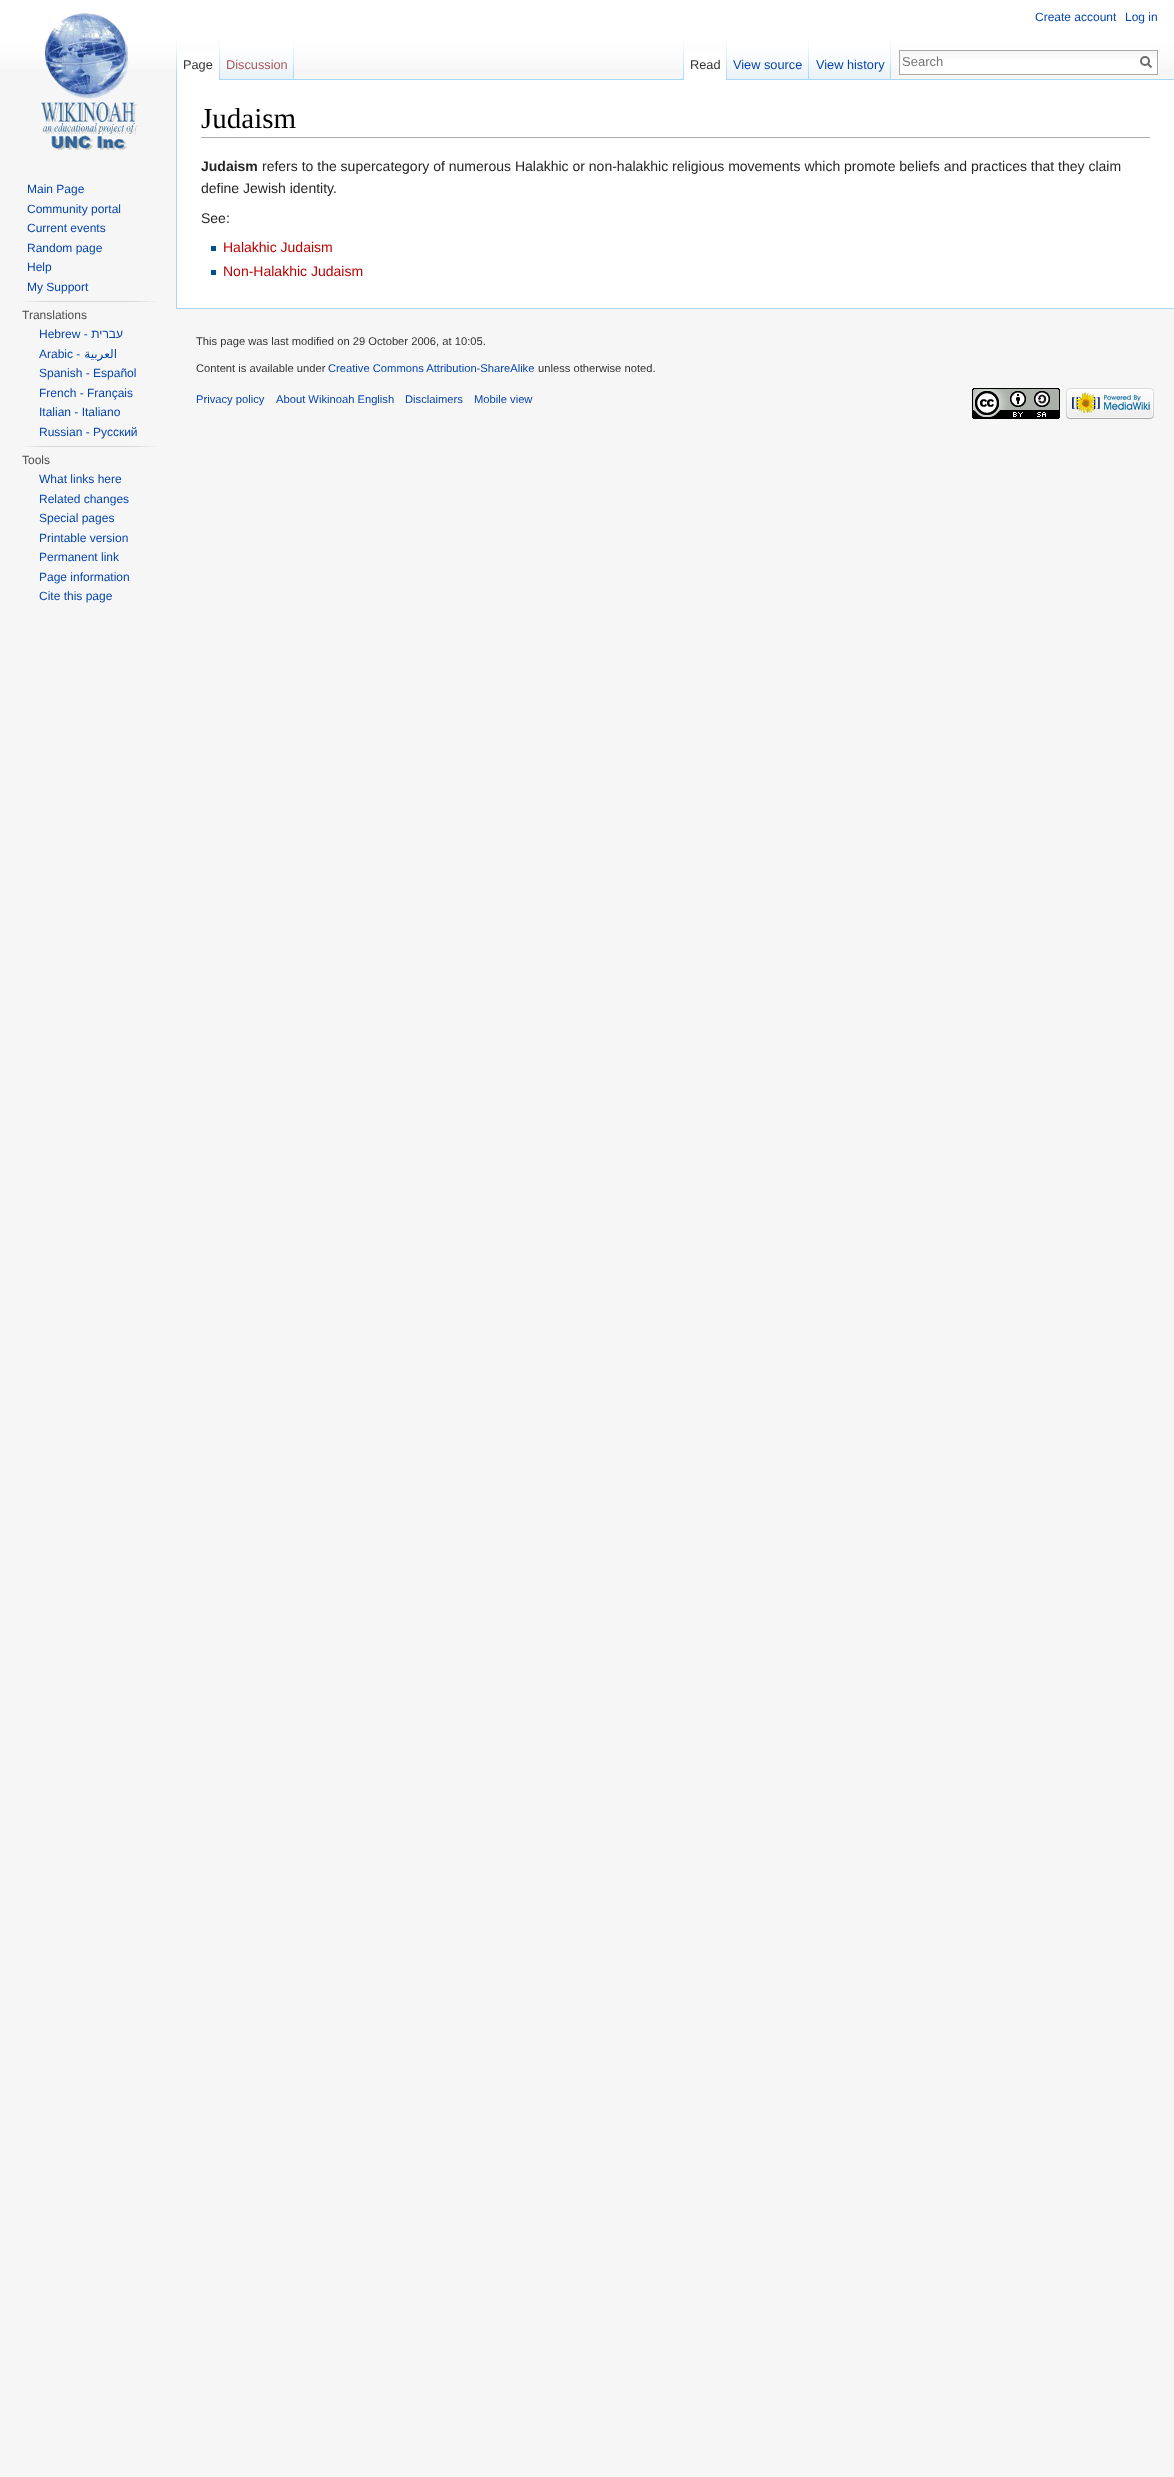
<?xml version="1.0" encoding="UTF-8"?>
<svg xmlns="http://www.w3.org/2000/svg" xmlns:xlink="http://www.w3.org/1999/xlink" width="1174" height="2477">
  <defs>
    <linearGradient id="g1" gradientUnits="userSpaceOnUse" x1="587" y1="0" x2="587" y2="80"><stop offset="0.5" stop-color="#ffffff" /><stop offset="1" stop-color="#f6f6f6" /></linearGradient>
  </defs>
  <rect width="100%" height="100%" fill="#f6f6f6" />
  <rect width="1174" height="69" fill="url(#g1)" />
  <image x="176" y="40" width="1" height="39" xlink:href="image1.png" />
  <rect x="177" y="51" width="42" height="29" fill="#ffffff" />
  <image x="219" y="40" width="1" height="40" xlink:href="image2.png" />
  <image x="220" y="40" width="74" height="40" xlink:href="image3.png" />
  <image x="293" y="40" width="1" height="39" xlink:href="image4.png" />
  <image x="683" y="40" width="1" height="39" xlink:href="image1.png" />
  <rect x="294" y="79" width="880" height="1" fill="#a7d7f9" />
  <rect x="684" y="51" width="42" height="29" fill="#ffffff" />
  <image x="726" y="40" width="1" height="40" xlink:href="image2.png" />
  <image x="727" y="40" width="82" height="40" xlink:href="image5.png" />
  <image x="808" y="40" width="1" height="39" xlink:href="image4.png" />
  <image x="809" y="40" width="82" height="40" xlink:href="image5.png" />
  <image x="890" y="40" width="1" height="39" xlink:href="image4.png" />
  <rect x="900" y="59" width="257" height="15" fill="#ffffff" />
  <image x="900" y="51" width="257" height="8" xlink:href="image6.png" />
  <rect x="899.5" y="50.5" width="258" height="24" fill="none" stroke="#aaaaaa" />
  <path d="M 1151.5 67.5 l -4 -4" fill="none" stroke="#6c6c6c" stroke-width="2" />
  <circle cx="1145" cy="61" r="4" fill="none" stroke="#6c6c6c" stroke-width="2" />
  <image x="41" y="13" width="97" height="137" xlink:href="image7.png" />
  <image x="22" y="301" width="135" height="1" xlink:href="image8.png" />
  <image x="22" y="446" width="135" height="1" xlink:href="image8.png" />
  <rect x="177" y="80" width="997" height="228" fill="#ffffff" />
  <rect x="176" y="308" width="998" height="1" fill="#a7d7f9" />
  <rect x="176" y="79" width="1" height="230" fill="#a7d7f9" />
  <rect x="201" y="137" width="949" height="1" fill="#aaaaaa" />
  <rect x="211" y="246" width="5" height="5" fill="#00528c" />
  <rect x="211" y="270" width="5" height="5" fill="#00528c" />
  <image x="972" y="388" width="88" height="31" xlink:href="image9.png" />
  <image x="1066" y="388" width="88" height="31" xlink:href="image10.png" />
  <text x="1035" y="21" style="font-family: Liberation Sans; font-size: 12px; fill: #0645ad">Create account</text>
  <text x="1125" y="21" style="font-family: Liberation Sans; font-size: 12px; fill: #0645ad">Log in</text>
  <text x="183" y="69" style="font-family: Liberation Sans; font-size: 12.75px; fill: #333333">Page</text>
  <text x="226" y="69" style="font-family: Liberation Sans; font-size: 12.75px; fill: #a55858">Discussion</text>
  <text x="690" y="69" style="font-family: Liberation Sans; font-size: 12.75px; fill: #333333">Read</text>
  <text x="733" y="69" style="font-family: Liberation Sans; font-size: 12.75px; fill: #0645ad">View source</text>
  <text x="816" y="69" style="font-family: Liberation Sans; font-size: 12.75px; fill: #0645ad">View history</text>
  <text x="902" y="66" style="font-family: Liberation Sans; font-size: 13px; fill: #757575">Search</text>
  <text x="27" y="193" style="font-family: Liberation Sans; font-size: 12px; fill: #0645ad">Main Page</text>
  <text x="27" y="213" style="font-family: Liberation Sans; font-size: 12px; fill: #0645ad">Community portal</text>
  <text x="27" y="232" style="font-family: Liberation Sans; font-size: 12px; fill: #0645ad">Current events</text>
  <text x="27" y="252" style="font-family: Liberation Sans; font-size: 12px; fill: #0645ad">Random page</text>
  <text x="27" y="271" style="font-family: Liberation Sans; font-size: 12px; fill: #0645ad">Help</text>
  <text x="27" y="291" style="font-family: Liberation Sans; font-size: 12px; fill: #0645ad">My Support</text>
  <text x="22" y="319" style="font-family: Liberation Sans; font-size: 12px; fill: #4d4d4d">Translations</text>
  <text x="39" y="338" style="font-family: Liberation Sans; font-size: 12px; fill: #0645ad">Hebrew -</text>
  <text x="123" y="338" style="font-family: Liberation Sans; font-size: 12px; direction: rtl; fill: #0645ad">עברית</text>
  <text x="39" y="358" style="font-family: Liberation Sans; font-size: 12px; fill: #0645ad">Arabic -</text>
  <text x="117" y="358" style="font-family: DejaVu Sans; font-size: 12px; direction: rtl; fill: #0645ad">العربية</text>
  <text x="39" y="377" style="font-family: Liberation Sans; font-size: 12px; fill: #0645ad">Spanish - Español</text>
  <text x="39" y="397" style="font-family: Liberation Sans; font-size: 12px; fill: #0645ad">French - Français</text>
  <text x="39" y="416" style="font-family: Liberation Sans; font-size: 12px; fill: #0645ad">Italian - Italiano</text>
  <text x="39" y="436" style="font-family: Liberation Sans; font-size: 12px; fill: #0645ad">Russian - Русский</text>
  <text x="22" y="464" style="font-family: Liberation Sans; font-size: 12px; fill: #4d4d4d">Tools</text>
  <text x="39" y="483" style="font-family: Liberation Sans; font-size: 12px; fill: #0645ad">What links here</text>
  <text x="39" y="503" style="font-family: Liberation Sans; font-size: 12px; fill: #0645ad">Related changes</text>
  <text x="39" y="522" style="font-family: Liberation Sans; font-size: 12px; fill: #0645ad">Special pages</text>
  <text x="39" y="542" style="font-family: Liberation Sans; font-size: 12px; fill: #0645ad">Printable version</text>
  <text x="39" y="561" style="font-family: Liberation Sans; font-size: 12px; fill: #0645ad">Permanent link</text>
  <text x="39" y="581" style="font-family: Liberation Sans; font-size: 12px; fill: #0645ad">Page information</text>
  <text x="39" y="600" style="font-family: Liberation Sans; font-size: 12px; fill: #0645ad">Cite this page</text>
  <text x="201" y="128" style="font-family: Liberation Serif; font-size: 29px; fill: #000000">Judaism</text>
  <text x="201" y="171" style="font-family: Liberation Sans; font-size: 14px; font-weight: bold; fill: #252525">Judaism</text>
  <text x="262" y="171" style="font-family: Liberation Sans; font-size: 14px; fill: #252525">refers to the supercategory of numerous Halakhic or non-halakhic religious movements which promote beliefs and practices that they claim</text>
  <text x="201" y="193" style="font-family: Liberation Sans; font-size: 14px; fill: #252525">define Jewish identity.</text>
  <text x="201" y="223" style="font-family: Liberation Sans; font-size: 14px; fill: #252525">See:</text>
  <text x="223" y="252" style="font-family: Liberation Sans; font-size: 14px; fill: #ba0000">Halakhic Judaism</text>
  <text x="223" y="276" style="font-family: Liberation Sans; font-size: 14px; fill: #ba0000">Non-Halakhic Judaism</text>
  <text x="196" y="345" style="font-family: Liberation Sans; font-size: 11.2px; fill: #333333">This page was last modified on 29 October 2006, at 10:05.</text>
  <text x="196" y="372" style="font-family: Liberation Sans; font-size: 11.2px; fill: #333333">Content is available under</text>
  <text x="328" y="372" style="font-family: Liberation Sans; font-size: 11.2px; fill: #0645ad">Creative Commons Attribution-ShareAlike</text>
  <text x="538" y="372" style="font-family: Liberation Sans; font-size: 11.2px; fill: #333333">unless otherwise noted.</text>
  <text x="196" y="403" style="font-family: Liberation Sans; font-size: 11.2px; fill: #0645ad">Privacy policy</text>
  <text x="276" y="403" style="font-family: Liberation Sans; font-size: 11.2px; fill: #0645ad">About Wikinoah English</text>
  <text x="405" y="403" style="font-family: Liberation Sans; font-size: 11.2px; fill: #0645ad">Disclaimers</text>
  <text x="474" y="403" style="font-family: Liberation Sans; font-size: 11.2px; fill: #0645ad">Mobile view</text>
</svg>
